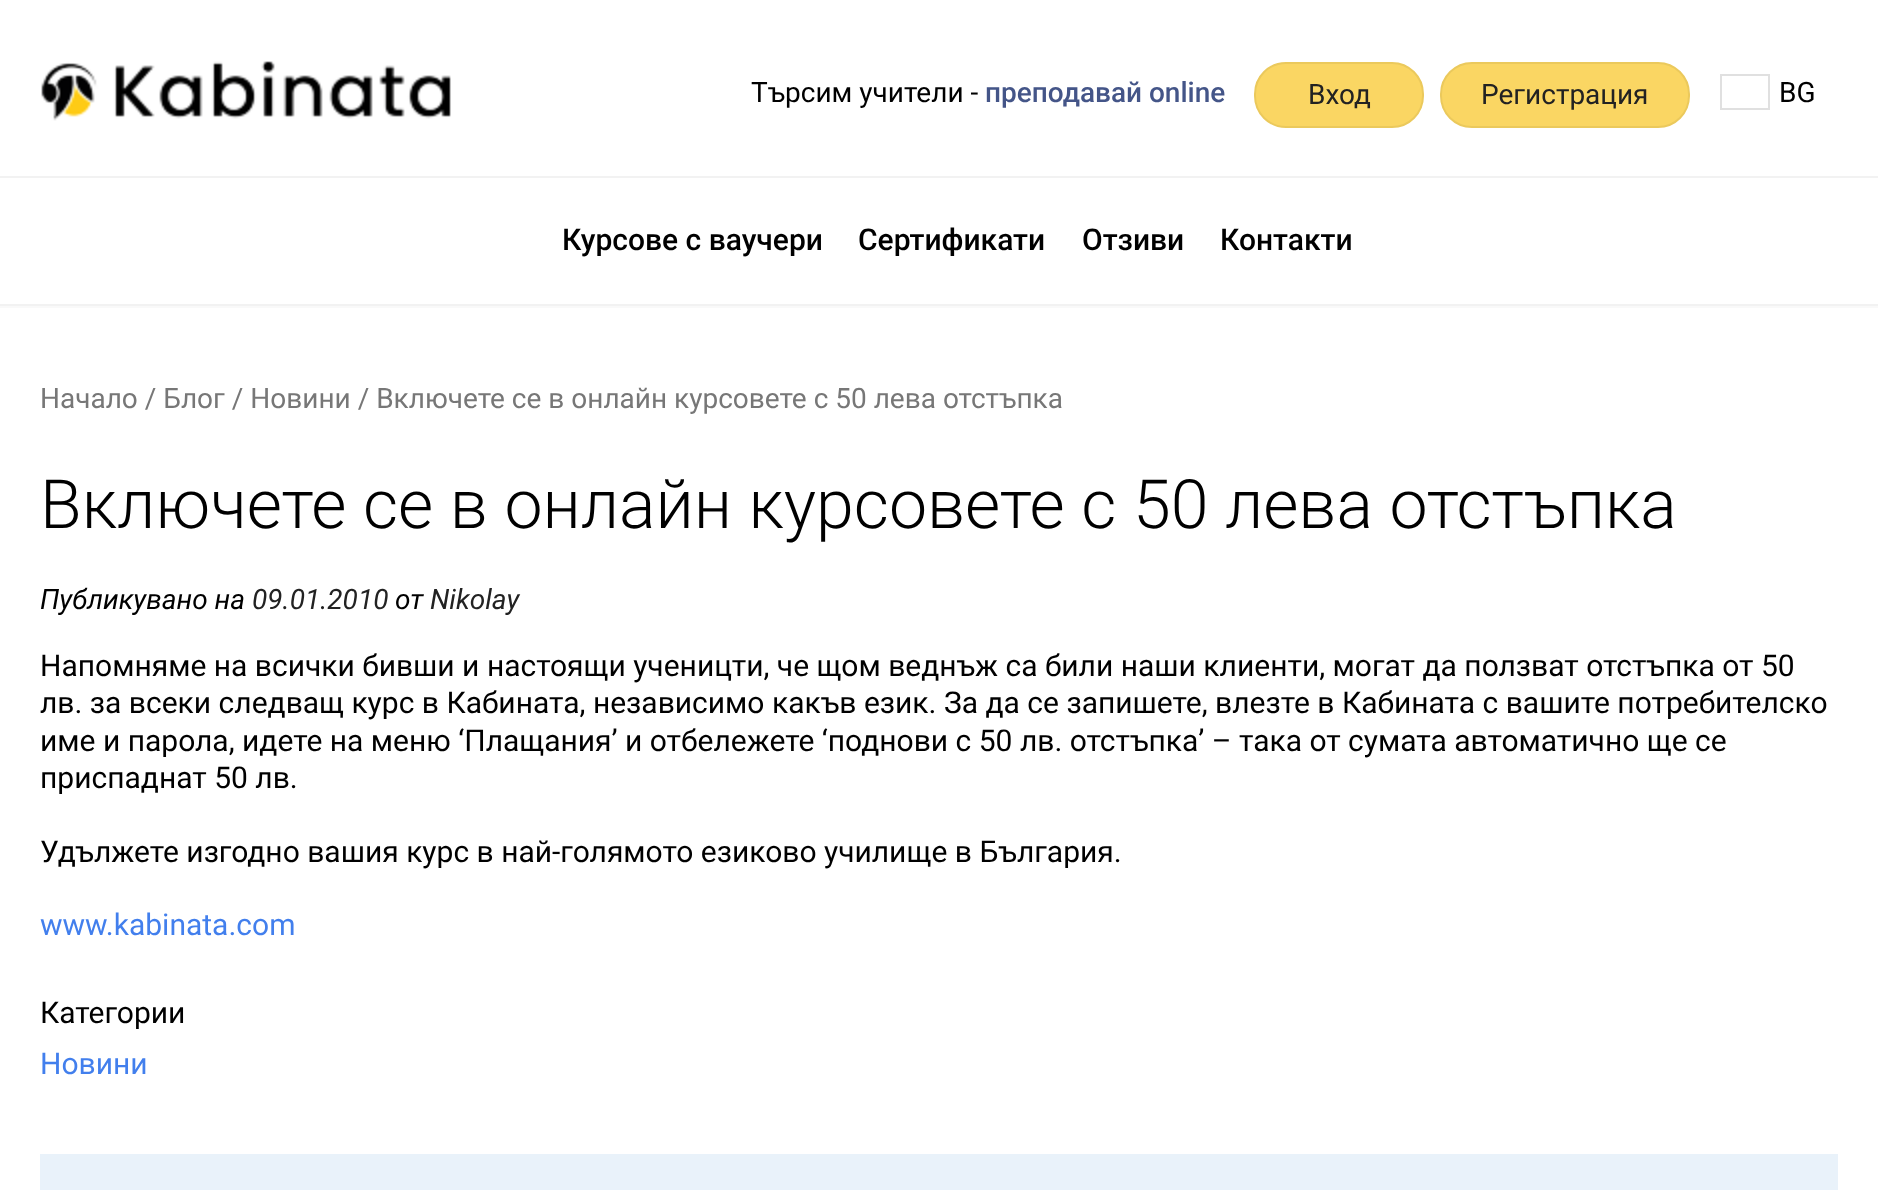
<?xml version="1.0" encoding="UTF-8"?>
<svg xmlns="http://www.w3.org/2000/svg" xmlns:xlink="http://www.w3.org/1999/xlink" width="1878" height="1190">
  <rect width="100%" height="100%" fill="#ffffff" />
  <rect y="176" width="1878" height="2" fill="#f2f2f2" />
  <image x="41" y="61" width="410" height="60" xlink:href="image1.png" />
  <rect x="1255" y="63" width="168" height="64" rx="31" fill="#fad663" stroke="#ebc95c" stroke-width="2" />
  <rect x="1441" y="63" width="248" height="64" rx="31" fill="#fad663" stroke="#ebc95c" stroke-width="2" />
  <rect x="1721" y="75" width="48" height="34" fill="none" stroke="#e0e0e0" stroke-width="2" />
  <rect y="306" width="1878" height="2" fill="#f9f9f9" />
  <rect y="304" width="1878" height="2" fill="#f2f2f2" />
  <rect x="40" y="1154" width="1798" height="36" fill="#e9f2fa" />
  <text x="751" y="102" style="font-family: Roboto; font-size: 28px; fill: #000000">Търсим учители -</text>
  <text x="985" y="102" style="font-family: Roboto; font-size: 28px; font-weight: 500; fill: #445588">преподавай online</text>
  <text x="1308" y="104" style="font-family: Roboto; font-size: 28px; fill: #222222">Вход</text>
  <text x="1481" y="104" style="font-family: Roboto; font-size: 28px; fill: #222222">Регистрация</text>
  <text x="1779" y="102" style="font-family: Roboto; font-size: 28px; fill: #000000">BG</text>
  <text x="562" y="250" style="font-family: Roboto; font-size: 30px; font-weight: 500; fill: #000000">Курсове с ваучери</text>
  <text x="858" y="250" style="font-family: Roboto; font-size: 30px; font-weight: 500; fill: #000000">Сертификати</text>
  <text x="1082" y="250" style="font-family: Roboto; font-size: 30px; font-weight: 500; fill: #000000">Отзиви</text>
  <text x="1220" y="250" style="font-family: Roboto; font-size: 30px; font-weight: 500; fill: #000000">Контакти</text>
  <text x="40" y="408" style="font-family: Roboto; font-size: 28px; fill: #777777">Начало / Блог / Новини / Включете се в онлайн курсовете с 50 лева отстъпка</text>
  <text x="40" y="528" style="font-family: Roboto; font-size: 68px; font-weight: 300; fill: #000000">Включете се в онлайн курсовете с 50 лева отстъпка</text>
  <text x="40" y="609" style="font-family: Roboto; font-size: 28px; font-style: italic; fill: #000000">Публикувано на</text>
  <text x="252" y="609" style="font-family: Roboto; font-size: 28px; font-style: italic; fill: #222222">09.01.2010</text>
  <text x="395" y="609" style="font-family: Roboto; font-size: 28px; font-style: italic; fill: #000000">от</text>
  <text x="430" y="609" style="font-family: Roboto; font-size: 28px; font-style: italic; fill: #222222">Nikolay</text>
  <text x="40" y="676" style="font-family: Roboto; font-size: 30px; fill: #000000">Напомняме на всички бивши и настоящи ученицти, че щом веднъж са били наши клиенти, могат да ползват отстъпка от 50</text>
  <text x="40" y="713" style="font-family: Roboto; font-size: 30px; fill: #000000">лв. за всеки следващ курс в Кабината, независимо какъв език. За да се запишете, влезте в Кабината с вашите потребителско</text>
  <text x="40" y="751" style="font-family: Roboto; font-size: 30px; fill: #000000">име и парола, идете на меню ‘Плащания’ и отбележете ‘поднови с 50 лв. отстъпка’ – така от сумата автоматично ще се</text>
  <text x="40" y="788" style="font-family: Roboto; font-size: 30px; fill: #000000">приспаднат 50 лв.</text>
  <text x="40" y="862" style="font-family: Roboto; font-size: 30px; fill: #000000">Удължете изгодно вашия курс в най-голямото езиково училище в България.</text>
  <text x="40" y="935" style="font-family: Roboto; font-size: 30px; fill: #427fed">www.kabinata.com</text>
  <text x="40" y="1023" style="font-family: Roboto; font-size: 30px; fill: #000000">Категории</text>
  <text x="40" y="1074" style="font-family: Roboto; font-size: 30px; fill: #427fed">Новини</text>
</svg>
